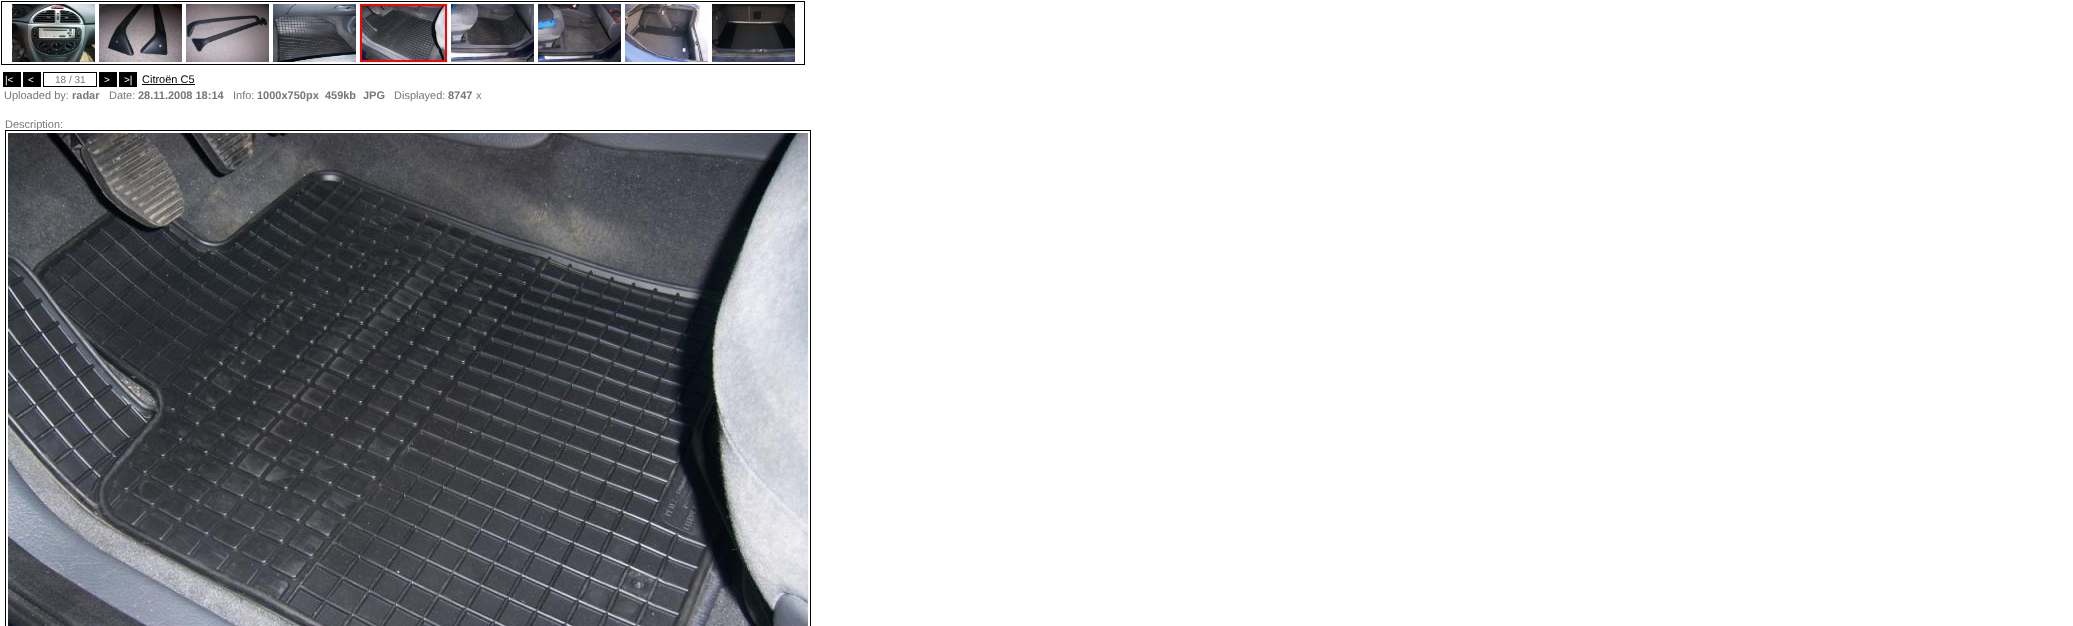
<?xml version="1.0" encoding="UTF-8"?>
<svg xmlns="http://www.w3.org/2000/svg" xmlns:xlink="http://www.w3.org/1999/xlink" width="2073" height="626">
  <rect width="100%" height="100%" fill="#ffffff" />
  <rect x="1.5" y="1.5" width="803" height="63" fill="none" stroke="#000000" />
  <image x="12" y="4" width="83" height="58" xlink:href="image1.png" />
  <image x="99" y="4" width="83" height="58" xlink:href="image2.png" />
  <image x="186" y="4" width="83" height="58" xlink:href="image3.png" />
  <image x="273" y="4" width="83" height="58" xlink:href="image4.png" />
  <rect x="361" y="5" width="85" height="56" fill="none" stroke="#ff0000" stroke-width="2" />
  <image x="451" y="4" width="83" height="58" xlink:href="image5.png" />
  <image x="538" y="4" width="83" height="58" xlink:href="image6.png" />
  <image x="625" y="4" width="83" height="58" xlink:href="image7.png" />
  <image x="712" y="4" width="83" height="58" xlink:href="image8.png" />
  <image x="362" y="6" width="83" height="54" xlink:href="image9.png" />
  <rect x="3" y="72" width="18" height="15" fill="#000000" />
  <rect x="23" y="72" width="18" height="15" fill="#000000" />
  <rect x="43.5" y="72.5" width="53" height="14" fill="none" stroke="#000000" />
  <rect x="99" y="72" width="18" height="15" fill="#000000" />
  <rect x="119" y="72" width="18" height="15" fill="#000000" />
  <rect x="142" y="84" width="53" height="1" fill="#000000" />
  <rect x="5.5" y="130.5" width="805" height="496" fill="none" stroke="#000000" />
  <image x="8" y="133" width="800" height="493" xlink:href="image10.png" />
  <text x="5" y="83" style="font-family: Liberation Sans; font-size: 10px; fill: #ffffff">|&lt;</text>
  <text x="28" y="83" style="font-family: Liberation Sans; font-size: 10px; fill: #ffffff">&lt;</text>
  <text x="55" y="83" style="font-family: Liberation Sans; font-size: 10px; fill: #777777">18 / 31</text>
  <text x="104" y="83" style="font-family: Liberation Sans; font-size: 10px; fill: #ffffff">&gt;</text>
  <text x="124" y="83" style="font-family: Liberation Sans; font-size: 10px; fill: #ffffff">&gt;|</text>
  <text x="142" y="83" style="font-family: Liberation Sans; font-size: 11px; fill: #000000">Citroën C5</text>
  <text x="4" y="99" style="font-family: Liberation Sans; font-size: 11px; fill: #777777">Uploaded by:</text>
  <text x="72" y="99" style="font-family: Liberation Sans; font-size: 11px; font-weight: bold; fill: #777777">radar</text>
  <text x="109" y="99" style="font-family: Liberation Sans; font-size: 11px; fill: #777777">Date:</text>
  <text x="138" y="99" style="font-family: Liberation Sans; font-size: 11px; font-weight: bold; fill: #777777">28.11.2008 18:14</text>
  <text x="233" y="99" style="font-family: Liberation Sans; font-size: 11px; fill: #777777">Info:</text>
  <text x="257" y="99" style="font-family: Liberation Sans; font-size: 11px; font-weight: bold; fill: #777777" xml:space="preserve">1000x750px  459kb</text>
  <text x="363" y="99" style="font-family: Liberation Sans; font-size: 11px; font-weight: bold; fill: #777777">JPG</text>
  <text x="394" y="99" style="font-family: Liberation Sans; font-size: 11px; fill: #777777">Displayed:</text>
  <text x="448" y="99" style="font-family: Liberation Sans; font-size: 11px; font-weight: bold; fill: #777777">8747</text>
  <text x="476" y="99" style="font-family: Liberation Sans; font-size: 11px; fill: #777777">x</text>
  <text x="5" y="128" style="font-family: Liberation Sans; font-size: 11px; fill: #777777">Description:</text>
</svg>
